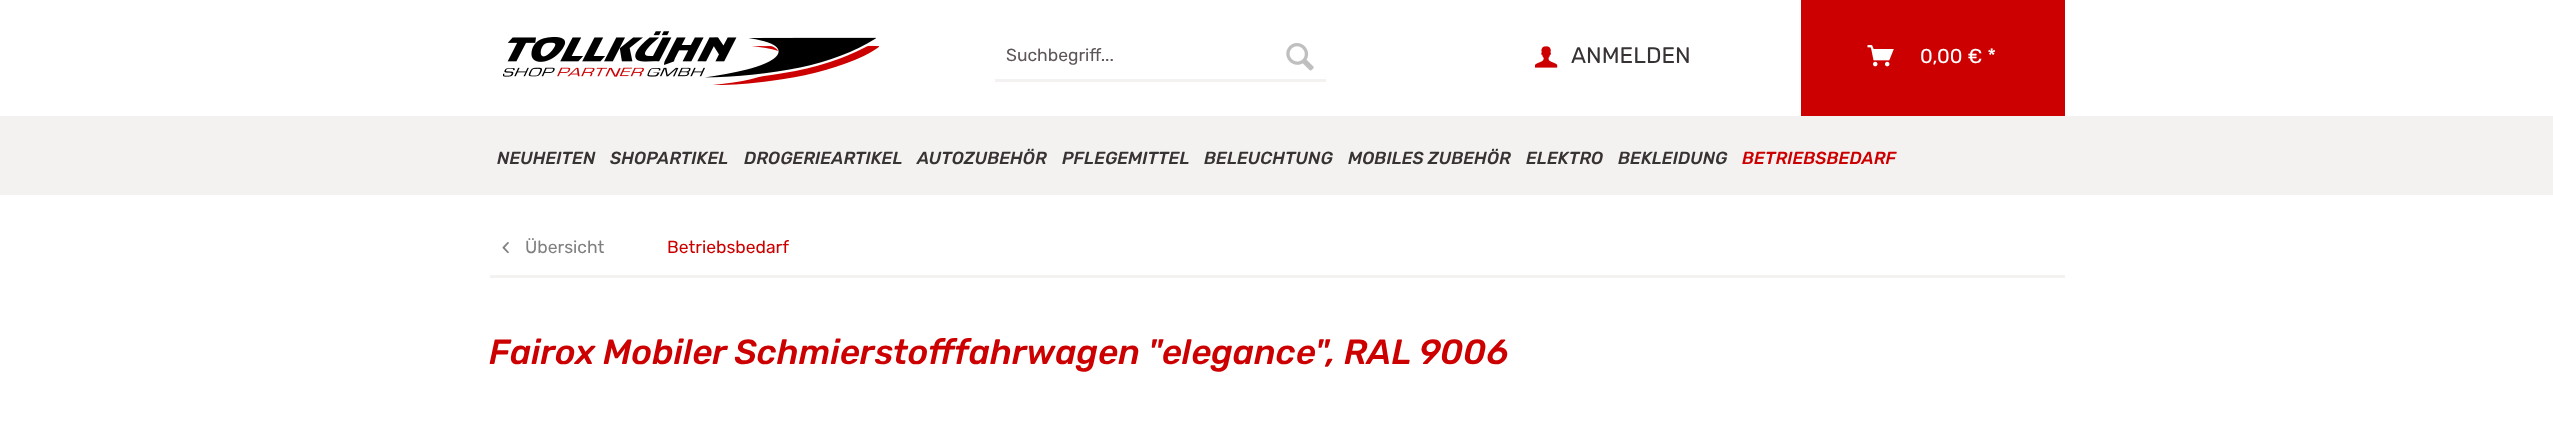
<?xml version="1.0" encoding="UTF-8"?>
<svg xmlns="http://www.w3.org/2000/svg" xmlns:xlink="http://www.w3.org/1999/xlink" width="2553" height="431">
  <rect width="100%" height="100%" fill="#ffffff" />
  <image x="503" y="31" width="376" height="54" xlink:href="image1.png" />
  <rect x="995" y="79" width="331" height="3" fill="#f4f2f0" />
  <image x="1286" y="43" width="28" height="28" xlink:href="image2.png" />
  <image x="1535" y="46" width="23" height="22" xlink:href="image3.png" />
  <rect x="1801" width="264" height="116" fill="#cc0000" />
  <image x="1867" y="45" width="27" height="22" xlink:href="image4.png" />
  <rect y="116" width="2553" height="79" fill="#f4f2f0" />
  <rect x="490" y="275" width="1575" height="3" fill="#f4f2f0" />
  <image x="502" y="242" width="7" height="12" xlink:href="image5.png" />
  <text x="1006" y="61" style="font-family: Rubik; font-size: 17.5px; fill: #5f565a">Suchbegriff...</text>
  <text x="1571" y="63" style="font-family: Rubik; font-size: 22.5px; fill: #373234">ANMELDEN</text>
  <text x="1920" y="63" style="font-family: Rubik; font-size: 20px; fill: #ffffff">0,00 € *</text>
  <text x="497" y="164" style="font-family: Rubik; font-size: 17.5px; font-weight: 500; font-style: italic; fill: #373234">NEUHEITEN</text>
  <text x="610" y="164" style="font-family: Rubik; font-size: 17.5px; font-weight: 500; font-style: italic; fill: #373234">SHOPARTIKEL</text>
  <text x="744" y="164" style="font-family: Rubik; font-size: 17.5px; font-weight: 500; font-style: italic; fill: #373234">DROGERIEARTIKEL</text>
  <text x="917" y="164" style="font-family: Rubik; font-size: 17.5px; font-weight: 500; font-style: italic; fill: #373234">AUTOZUBEHÖR</text>
  <text x="1062" y="164" style="font-family: Rubik; font-size: 17.5px; font-weight: 500; font-style: italic; fill: #373234">PFLEGEMITTEL</text>
  <text x="1204" y="164" style="font-family: Rubik; font-size: 17.5px; font-weight: 500; font-style: italic; fill: #373234">BELEUCHTUNG</text>
  <text x="1348" y="164" style="font-family: Rubik; font-size: 17.5px; font-weight: 500; font-style: italic; fill: #373234">MOBILES ZUBEHÖR</text>
  <text x="1526" y="164" style="font-family: Rubik; font-size: 17.5px; font-weight: 500; font-style: italic; fill: #373234">ELEKTRO</text>
  <text x="1618" y="164" style="font-family: Rubik; font-size: 17.5px; font-weight: 500; font-style: italic; fill: #373234">BEKLEIDUNG</text>
  <text x="1742" y="164" style="font-family: Rubik; font-size: 17.5px; font-weight: 500; font-style: italic; fill: #cc0000">BETRIEBSBEDARF</text>
  <text x="525" y="253" style="font-family: Rubik; font-size: 17.5px; fill: #808080">Übersicht</text>
  <text x="667" y="253" style="font-family: Rubik; font-size: 17.5px; fill: #cc0000">Betriebsbedarf</text>
  <text x="489" y="364" style="font-family: Rubik; font-size: 35px; font-weight: 500; font-style: italic; fill: #cc0000">Fairox Mobiler Schmierstofffahrwagen "elegance", RAL 9006</text>
</svg>
